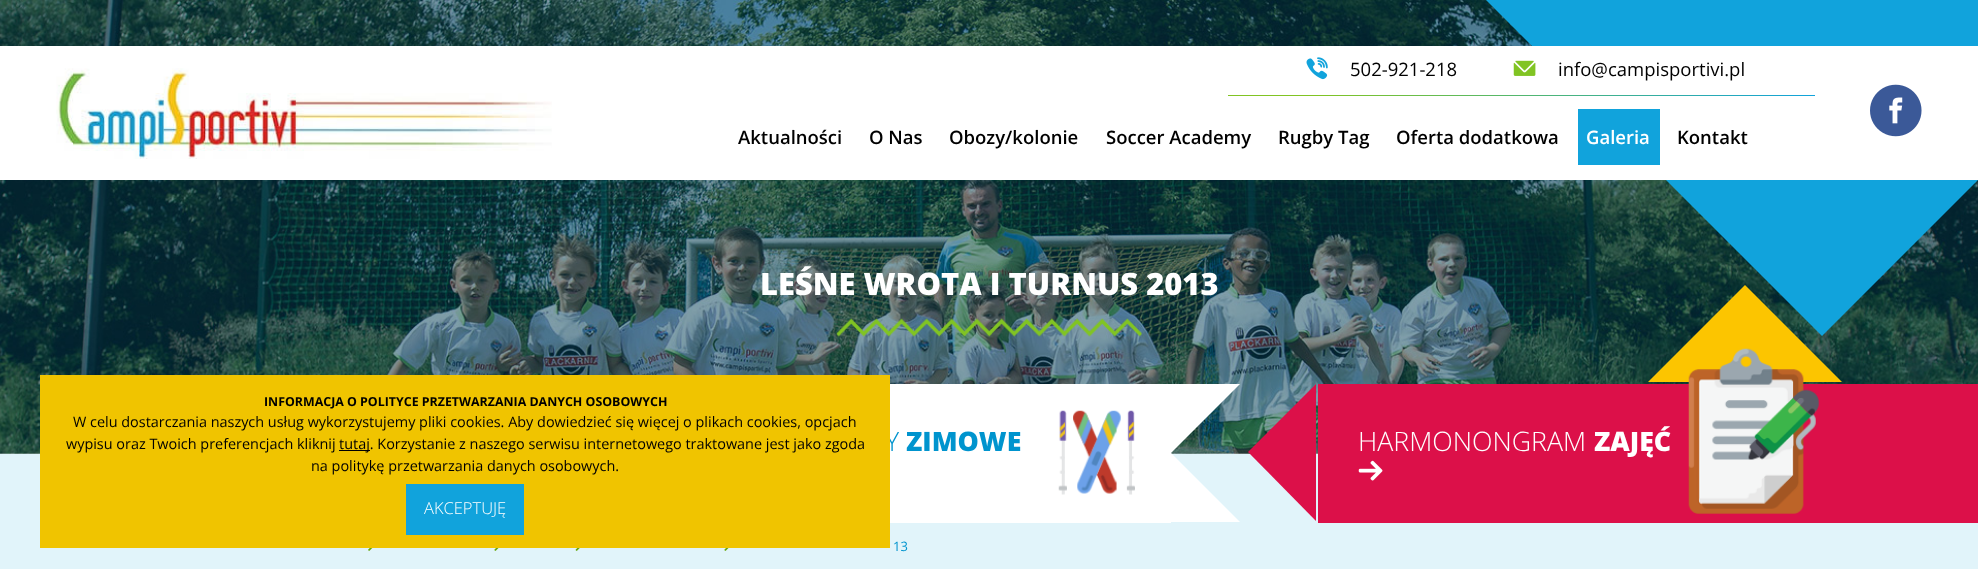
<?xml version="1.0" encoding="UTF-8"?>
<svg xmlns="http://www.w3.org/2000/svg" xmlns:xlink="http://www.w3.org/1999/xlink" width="1978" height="569">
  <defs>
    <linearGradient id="g1" gradientUnits="userSpaceOnUse" x1="1815" y1="96" x2="1228" y2="96"><stop offset="0" stop-color="#11a3dc" /><stop offset="0.85" stop-color="#81c423" /><stop offset="1" stop-color="#81c423" /></linearGradient>
  </defs>
  <rect width="100%" height="100%" fill="#ffffff" />
  <image x="0" y="0" width="1978" height="454" xlink:href="image5.png" />
  <path d="M 1482 -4 h 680 l -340 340 z" fill="#11a3dc" />
  <rect y="46" width="1978" height="134" fill="#ffffff" />
  <image x="56" y="68" width="496" height="91" xlink:href="image1.png" />
  <image x="1306" y="57" width="22" height="23" xlink:href="image2.png" />
  <image x="1513" y="60" width="23" height="16" xlink:href="image3.png" />
  <rect x="1228" y="95" width="587" height="1" fill="url(#g1)" />
  <rect x="1578" y="109" width="82" height="56" fill="#11a3dc" />
  <image x="1870" y="84" width="52" height="53" xlink:href="image4.png" />
  <image x="836" y="318" width="306" height="19" xlink:href="image6.png" />
  <rect y="454" width="1978" height="115" fill="#e1f4fa" />
  <rect x="890" y="384" width="281" height="139" fill="#ffffff" />
  <path d="M 1170 384 h 70 l -70 70 z" fill="#ffffff" />
  <path d="M 1240 522 h -70 v -70 z" fill="#ffffff" />
  <image x="1058" y="410" width="77" height="85" xlink:href="image7.png" />
  <rect x="1318" y="384" width="660" height="139" fill="#dc1049" />
  <path d="M 1316 384 v 137 l -68 -69 z" fill="#dc1049" />
  <path d="M 1842 382 h -194 l 97 -97 z" fill="#fcc500" />
  <image x="1358" y="460" width="25" height="21" xlink:href="image8.png" />
  <image x="1688" y="348" width="131" height="166" xlink:href="image9.png" />
  <image x="368" y="548" width="5" height="3" xlink:href="image10.png" />
  <image x="494" y="548" width="5" height="3" xlink:href="image11.png" />
  <image x="575" y="548" width="5" height="3" xlink:href="image12.png" />
  <image x="724" y="548" width="5" height="3" xlink:href="image11.png" />
  <text x="1350" y="76" style="font-family: Open Sans; font-size: 18.5px; fill: #000000">502-921-218</text>
  <text x="1558" y="76" style="font-family: Open Sans; font-size: 18.5px; fill: #000000">info@campisportivi.pl</text>
  <text x="738" y="144" style="font-family: Open Sans; font-size: 18.5px; font-weight: 600; fill: #000000">Aktualności</text>
  <text x="869" y="144" style="font-family: Open Sans; font-size: 18.5px; font-weight: 600; fill: #000000">O Nas</text>
  <text x="949" y="144" style="font-family: Open Sans; font-size: 18.5px; font-weight: 600; fill: #000000">Obozy/kolonie</text>
  <text x="1106" y="144" style="font-family: Open Sans; font-size: 18.5px; font-weight: 600; fill: #000000">Soccer Academy</text>
  <text x="1278" y="144" style="font-family: Open Sans; font-size: 18.5px; font-weight: 600; fill: #000000">Rugby Tag</text>
  <text x="1396" y="144" style="font-family: Open Sans; font-size: 18.5px; font-weight: 600; fill: #000000">Oferta dodatkowa</text>
  <text x="1586" y="144" style="font-family: Open Sans; font-size: 18.5px; font-weight: 600; fill: #ffffff">Galeria</text>
  <text x="1677" y="144" style="font-family: Open Sans; font-size: 18.5px; font-weight: 600; fill: #000000">Kontakt</text>
  <text x="760" y="295" style="font-family: Open Sans; font-size: 30.9px; font-weight: 800; fill: #ffffff">LEŚNE WROTA I TURNUS 2013</text>
  <text x="885" y="451" style="font-family: Open Sans; font-size: 26.75px; font-weight: 300; fill: #0094ce">Y</text>
  <rect x="40" y="375" width="850" height="173" fill="#f0c400" />
  <rect x="406" y="484" width="118" height="51" fill="#11a3dc" />
  <text x="424" y="514" style="font-family: Open Sans; font-size: 16.5px; font-weight: 300; fill: #ffffff">AKCEPTUJĘ</text>
  <text x="311" y="471" style="font-family: Open Sans; font-size: 14.43px; fill: #000000">na politykę przetwarzania danych osobowych.</text>
  <rect x="339" y="450" width="31" height="1" fill="#000000" />
  <text x="339" y="449" style="font-family: Open Sans; font-size: 14.43px; fill: #000000">tutaj. Korzystanie z naszego serwisu internetowego traktowane jest jako zgoda</text>
  <text x="66" y="449" style="font-family: Open Sans; font-size: 14.43px; fill: #000000">wypisu oraz Twoich preferencjach kliknij</text>
  <text x="73" y="427" style="font-family: Open Sans; font-size: 14.43px; fill: #000000">W celu dostarczania naszych usług wykorzystujemy pliki cookies. Aby dowiedzieć się więcej o plikach cookies, opcjach</text>
  <text x="264" y="406" style="font-family: Open Sans; font-size: 12.4px; font-weight: bold; fill: #000000">INFORMACJA O POLITYCE PRZETWARZANIA DANYCH OSOBOWYCH</text>
  <text x="906" y="451" style="font-family: Open Sans; font-size: 26.75px; font-weight: 800; fill: #0094ce">ZIMOWE</text>
  <text x="1358" y="451" style="font-family: Open Sans; font-size: 26.75px; font-weight: 300; fill: #ffffff">HARMONONGRAM</text>
  <text x="1594" y="451" style="font-family: Open Sans; font-size: 26.75px; font-weight: 800; fill: #ffffff">ZAJĘĆ</text>
  <text x="893" y="551" style="font-family: Open Sans; font-size: 13px; fill: #0094ce">13</text>
</svg>
